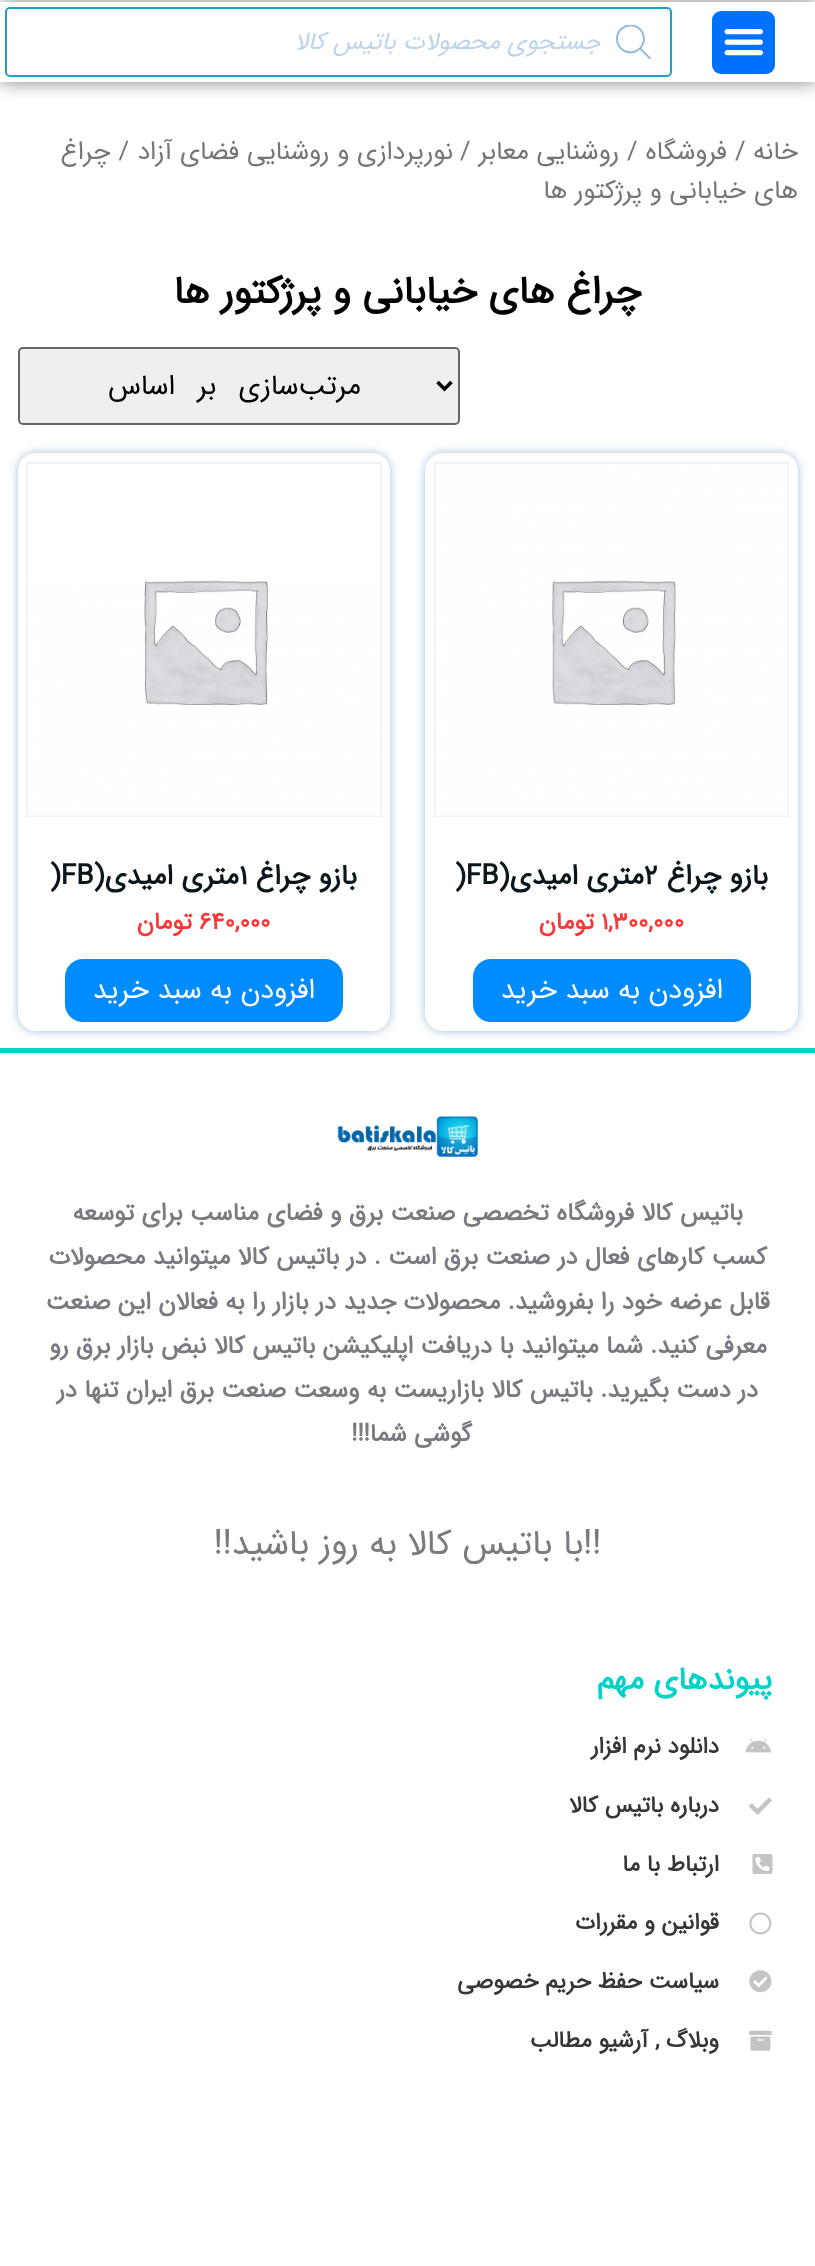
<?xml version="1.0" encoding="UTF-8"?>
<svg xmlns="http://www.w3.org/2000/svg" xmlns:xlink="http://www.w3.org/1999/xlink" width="815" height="2266">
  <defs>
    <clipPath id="clip1"><path d="M 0 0 h 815 v 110 h -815 z m 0 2 h 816 v 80 h -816 z" clip-rule="evenodd" /></clipPath>
    <clipPath id="clip2"><rect x="33" y="23" width="567" height="38" /></clipPath>
  </defs>
  <rect width="100%" height="100%" fill="#ffffff" />
  <g clip-path="url(#clip1)">
    <rect y="2" width="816" height="80" fill="#000000" fill-opacity="0.5" filter="blur(9px)" />
  </g>
  <rect x="712" y="11" width="63" height="63" rx="9" fill="#0070ff" />
  <image x="724" y="29" width="39" height="27" xlink:href="image1.png" />
  <rect x="6" y="8" width="665" height="68" rx="4" fill="none" stroke="#1f9fc6" stroke-width="2" />
  <image x="616" y="25" width="35" height="35" xlink:href="image2.png" />
  <rect x="19" y="348" width="440" height="76" rx="4" fill="#efefef" stroke="#666666" stroke-width="2" />
  <path d="M 437.5 382 l 7 7 l 7 -7" fill="none" stroke="#000000" stroke-width="3.5" />
  <rect x="425" y="453" width="373" height="578" rx="18" fill="#4380b4" fill-opacity="0.5" filter="blur(5px)" />
  <rect x="425" y="453" width="373" height="578" rx="18" fill="#ffffff" />
  <rect x="435" y="463" width="353" height="353" fill="none" stroke="#f2f2f2" stroke-width="2" />
  <image x="436" y="464" width="352" height="352" xlink:href="image3.png" />
  <rect x="473" y="959" width="278" height="63" rx="18" fill="#008bff" />
  <rect x="18" y="453" width="372" height="578" rx="18" fill="#4380b4" fill-opacity="0.5" filter="blur(5px)" />
  <rect x="18" y="453" width="372" height="578" rx="18" fill="#ffffff" />
  <rect x="27" y="463" width="354" height="353" fill="none" stroke="#f2f2f2" stroke-width="2" />
  <image x="28" y="580" width="352" height="236" xlink:href="image4.png" />
  <rect x="65" y="959" width="278" height="63" rx="18" fill="#008bff" />
  <rect y="1048" width="815" height="5" fill="#02d3c9" />
  <image x="337" y="1116" width="141" height="41" xlink:href="image5.png" />
  <image x="745" y="1738" width="26" height="15" xlink:href="image6.png" />
  <image x="749" y="1797" width="23" height="18" xlink:href="image7.png" />
  <image x="752" y="1854" width="21" height="20" xlink:href="image8.png" />
  <image x="749" y="1912" width="23" height="23" xlink:href="image9.png" />
  <image x="749" y="1970" width="23" height="23" xlink:href="image10.png" />
  <image x="749" y="2030" width="23" height="21" xlink:href="image11.png" />
  <g clip-path="url(#clip2)">
    <text x="601" y="49" style="font-family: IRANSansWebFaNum; font-size: 24.5px; font-style: italic; direction: rtl; fill: #bcd5ec">جستجوی محصولات باتیس کالا</text>
  </g>
  <text x="798" y="159" style="font-family: IRANSansWebFaNum; font-size: 25.75px; direction: rtl; fill: #767676">خانه</text>
  <text x="735" y="159" style="font-family: IRANSansWebFaNum; font-size: 25.75px; fill: #767676">/</text>
  <text x="727" y="159" style="font-family: IRANSansWebFaNum; font-size: 25.75px; direction: rtl; fill: #767676">فروشگاه</text>
  <text x="627" y="159" style="font-family: IRANSansWebFaNum; font-size: 25.75px; fill: #767676">/</text>
  <text x="619" y="159" style="font-family: IRANSansWebFaNum; font-size: 25.75px; direction: rtl; fill: #767676">روشنایی معابر</text>
  <text x="460" y="159" style="font-family: IRANSansWebFaNum; font-size: 25.75px; fill: #767676">/</text>
  <text x="453" y="159" style="font-family: IRANSansWebFaNum; font-size: 25.75px; direction: rtl; fill: #767676">نورپردازی و روشنایی فضای آزاد</text>
  <text x="129" y="159" style="font-family: IRANSansWebFaNum; font-size: 25.75px; direction: rtl; fill: #767676">/ چراغ</text>
  <text x="798" y="198" style="font-family: IRANSansWebFaNum; font-size: 25.75px; direction: rtl; fill: #767676">های خیابانی و پرژکتور ها</text>
  <text x="641" y="303" style="font-family: IRANSansWebFaNum; font-size: 38.5px; font-weight: bold; direction: rtl; fill: #000000">چراغ های خیابانی و پرژکتور ها</text>
  <text x="361" y="394" word-spacing="14" style="font-family: IRANSansWebFaNum; font-size: 28px; direction: rtl; fill: #000000">مرتب‌سازی بر اساس</text>
  <text x="768" y="884" style="font-family: IRANSansWebFaNum; font-size: 28px; font-weight: bold; direction: rtl; fill: #0a161b">بازو چراغ</text>
  <text x="644" y="884" style="font-family: IRANSansWebFaNum; font-size: 28px; font-weight: bold; fill: #0a161b">2</text>
  <text x="644" y="884" style="font-family: IRANSansWebFaNum; font-size: 28px; font-weight: bold; direction: rtl; fill: #0a161b">متری امیدی(</text>
  <text x="455" y="884" style="font-family: IRANSansWebFaNum; font-size: 28px; font-weight: bold; fill: #0a161b">)FB</text>
  <text x="601" y="929" style="font-family: IRANSansWebFaNum; font-size: 24px; font-weight: bold; fill: #fa3737">1,300,000</text>
  <text x="594" y="929" style="font-family: IRANSansWebFaNum; font-size: 24px; font-weight: bold; direction: rtl; fill: #fa3737">تومان</text>
  <text x="723" y="998" style="font-family: IRANSansWebFaNum; font-size: 28px; direction: rtl; fill: #ffffff">افزودن به سبد خرید</text>
  <text x="357" y="884" style="font-family: IRANSansWebFaNum; font-size: 28px; font-weight: bold; direction: rtl; fill: #0a161b">بازو چراغ</text>
  <text x="239" y="884" style="font-family: IRANSansWebFaNum; font-size: 28px; font-weight: bold; fill: #0a161b">1</text>
  <text x="239" y="884" style="font-family: IRANSansWebFaNum; font-size: 28px; font-weight: bold; direction: rtl; fill: #0a161b">متری امیدی(</text>
  <text x="50" y="884" style="font-family: IRANSansWebFaNum; font-size: 28px; font-weight: bold; fill: #0a161b">)FB</text>
  <text x="199" y="929" style="font-family: IRANSansWebFaNum; font-size: 24px; font-weight: bold; fill: #fa3737">640,000</text>
  <text x="192" y="929" style="font-family: IRANSansWebFaNum; font-size: 24px; font-weight: bold; direction: rtl; fill: #fa3737">تومان</text>
  <text x="315" y="998" style="font-family: IRANSansWebFaNum; font-size: 28px; direction: rtl; fill: #ffffff">افزودن به سبد خرید</text>
  <text x="743" y="1220" style="font-family: IRANSansWebFaNum; font-size: 24.5px; font-weight: bold; direction: rtl; fill: #787c81">باتیس کالا فروشگاه تخصصی صنعت برق و فضای مناسب برای توسعه</text>
  <text x="767" y="1264" style="font-family: IRANSansWebFaNum; font-size: 24.5px; font-weight: bold; direction: rtl; fill: #787c81">کسب کارهای فعال در صنعت برق است . در باتیس کالا میتوانید محصولات</text>
  <text x="770" y="1309" style="font-family: IRANSansWebFaNum; font-size: 24.5px; font-weight: bold; direction: rtl; fill: #787c81">قابل عرضه خود را بفروشید. محصولات جدید در بازار را به فعالان این صنعت</text>
  <text x="767" y="1353" style="font-family: IRANSansWebFaNum; font-size: 24.5px; font-weight: bold; direction: rtl; fill: #787c81">معرفی کنید. شما میتوانید با دریافت اپلیکیشن باتیس کالا نبض بازار برق رو</text>
  <text x="758" y="1397" style="font-family: IRANSansWebFaNum; font-size: 24.5px; font-weight: bold; direction: rtl; fill: #787c81">در دست بگیرید. باتیس کالا بازاریست به وسعت صنعت برق ایران تنها در</text>
  <text x="472" y="1441" style="font-family: IRANSansWebFaNum; font-size: 24.5px; font-weight: bold; direction: rtl; fill: #787c81">گوشی شما!!!</text>
  <text x="601" y="1554" style="font-family: IRANSansWebFaNum; font-size: 35px; direction: rtl; fill: #787c81">!!با باتیس کالا به روز باشید!!</text>
  <text x="772" y="1689" style="font-family: IRANSansWebFaNum; font-size: 31.5px; font-weight: bold; direction: rtl; fill: #02d3c9">پیوندهای مهم</text>
  <text x="719" y="1753" style="font-family: IRANSansWebFaNum; font-size: 22.75px; font-weight: bold; direction: rtl; fill: #363636">دانلود نرم افزار</text>
  <text x="719" y="1812" style="font-family: IRANSansWebFaNum; font-size: 22.75px; font-weight: bold; direction: rtl; fill: #363636">درباره باتیس کالا</text>
  <text x="719" y="1871" style="font-family: IRANSansWebFaNum; font-size: 22.75px; font-weight: bold; direction: rtl; fill: #363636">ارتباط با ما</text>
  <text x="719" y="1929" style="font-family: IRANSansWebFaNum; font-size: 22.75px; font-weight: bold; direction: rtl; fill: #363636">قوانین و مقررات</text>
  <text x="719" y="1988" style="font-family: IRANSansWebFaNum; font-size: 22.75px; font-weight: bold; direction: rtl; fill: #363636">سیاست حفظ حریم خصوصی</text>
  <text x="719" y="2047" style="font-family: IRANSansWebFaNum; font-size: 22.75px; font-weight: bold; direction: rtl; fill: #363636">وبلاگ , آرشیو مطالب</text>
</svg>
